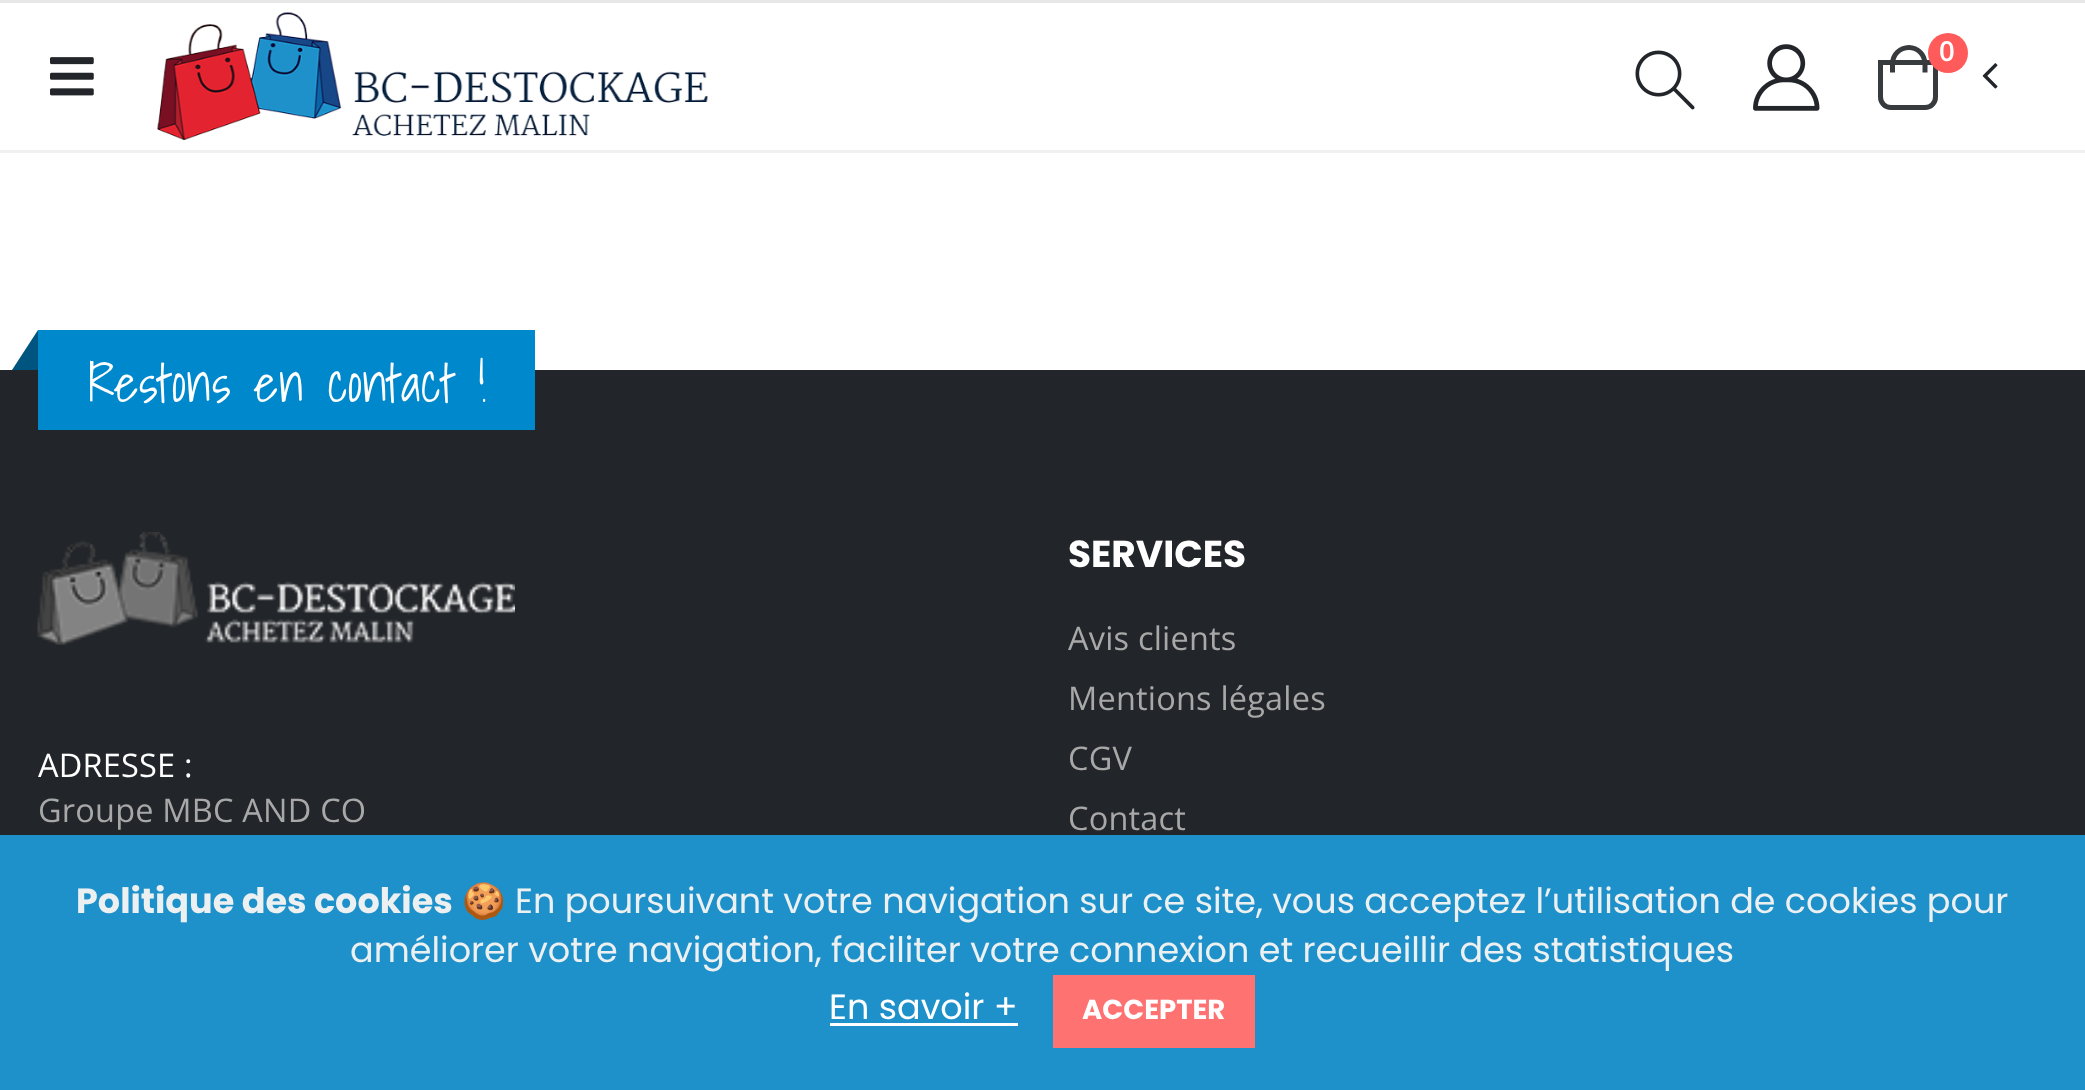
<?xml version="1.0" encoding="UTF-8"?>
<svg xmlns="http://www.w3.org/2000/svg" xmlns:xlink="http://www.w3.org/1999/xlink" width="2085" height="1090">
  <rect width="100%" height="100%" fill="#ffffff" />
  <rect y="150" width="2085" height="3" fill="#f0f0f0" />
  <rect width="2085" height="3" fill="#e7e7e7" />
  <image x="50" y="57" width="44" height="39" xlink:href="image1.png" />
  <image x="157" y="12" width="551" height="128" xlink:href="image2.png" />
  <image x="1635" y="50" width="60" height="60" xlink:href="image3.png" />
  <image x="1753" y="44" width="67" height="67" xlink:href="image4.png" />
  <path d="M 1880.5 62.5 h 55 v 34.5 c 0 6 -4.5 10.5 -10.5 10.5 h -34 c -6 0 -10.5 -4.5 -10.5 -10.5 z" fill="none" stroke="#383b3e" stroke-width="5" />
  <path d="M 1909 45 c 10 0 18.5 8.5 18.5 19 v 8.5 h -37.5 v -8.5 c 0 -10.5 8.5 -19 19 -19 z m 0 5 c 7.5 0 13.5 6 13.5 14 v 8.5 h -27.5 v -8.5 c 0 -8 6 -14 14 -14 z" fill="#383b3e" fill-rule="evenodd" />
  <circle cx="1948" cy="53" r="20" fill="#ff5b5b" />
  <image x="1982" y="63" width="16" height="26" xlink:href="image5.png" />
  <rect y="370" width="2085" height="465" fill="#222529" />
  <rect x="38" y="330" width="497" height="100" fill="#0088cc" />
  <path d="M 38 330 v 40 h -26 z" fill="#005580" />
  <image x="37" y="532" width="478" height="113" xlink:href="image6.png" />
  <rect y="835" width="2085" height="255" fill="#1e91ca" />
  <rect x="830" y="1023" width="188" height="3" fill="#ffffff" />
  <rect x="1053" y="975" width="202" height="73" fill="#ff7272" />
  <text x="1939" y="61" style="font-family: Open Sans; font-size: 27.5px; font-weight: 600; fill: #ffffff">0</text>
  <text x="88" y="402" style="font-family: Shadows Into Light; font-size: 52px; letter-spacing: 0.2px; fill: #ffffff">Restons en contact !</text>
  <text x="38" y="777" style="font-family: Open Sans; font-size: 32.5px; letter-spacing: 0.2px; fill: #ffffff">ADRESSE :</text>
  <text x="38" y="822" style="font-family: Open Sans; font-size: 32.5px; letter-spacing: 0.2px; fill: #a8a8a8">Groupe MBC AND CO</text>
  <text x="1068" y="567" style="font-family: Poppins; font-size: 37.5px; font-weight: bold; fill: #ffffff">SERVICES</text>
  <text x="1068" y="650" style="font-family: Open Sans; font-size: 32.5px; letter-spacing: 0.2px; fill: #a8a8a8">Avis clients</text>
  <text x="1068" y="710" style="font-family: Open Sans; font-size: 32.5px; letter-spacing: 0.2px; fill: #a8a8a8">Mentions légales</text>
  <text x="1068" y="770" style="font-family: Open Sans; font-size: 32.5px; letter-spacing: 0.2px; fill: #a8a8a8">CGV</text>
  <text x="1068" y="830" style="font-family: Open Sans; font-size: 32.5px; letter-spacing: 0.2px; fill: #a8a8a8">Contact</text>
  <text x="76" y="913" style="font-family: Poppins; font-size: 35px; font-weight: bold; fill: #ecf0f1">Politique des cookies</text>
  <text x="462" y="913" style="font-family: Noto Color Emoji; font-size: 35px; fill: #ecf0f1">🍪</text>
  <text x="515" y="913" style="font-family: Poppins; font-size: 35px; fill: #ecf0f1">En poursuivant votre navigation sur ce site, vous acceptez l’utilisation de cookies pour</text>
  <text x="350" y="962" style="font-family: Poppins; font-size: 35px; fill: #ecf0f1">améliorer votre navigation, faciliter votre connexion et recueillir des statistiques</text>
  <text x="829" y="1019" style="font-family: Poppins; font-size: 35px; fill: #ffffff">En savoir +</text>
  <text x="1082" y="1019" style="font-family: Poppins; font-size: 27.5px; font-weight: bold; fill: #ffffff">ACCEPTER</text>
</svg>
